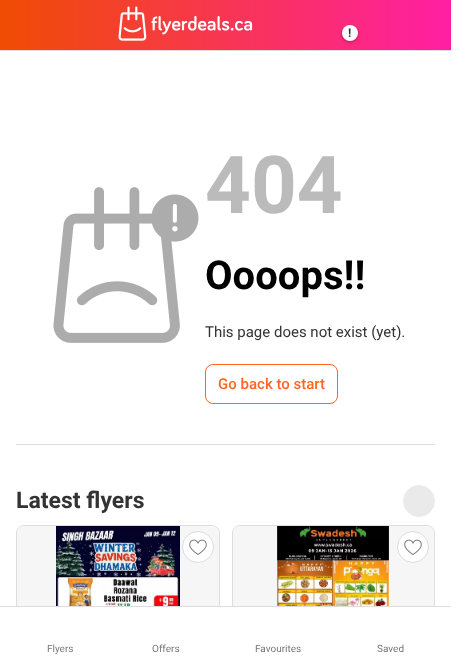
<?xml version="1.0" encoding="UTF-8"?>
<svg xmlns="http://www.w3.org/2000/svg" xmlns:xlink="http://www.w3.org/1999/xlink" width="466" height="658">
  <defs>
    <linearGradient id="g1" gradientUnits="userSpaceOnUse" x1="451" y1="25" x2="0" y2="25"><stop offset="0" stop-color="#ff1fa3" /><stop offset="1" stop-color="#f04c03" /></linearGradient>
  </defs>
  <rect width="100%" height="100%" fill="#ffffff" />
  <rect y="1" width="451" height="50" fill="#dddddd" filter="blur(0.5px)" />
  <rect width="451" height="50" fill="url(#g1)" />
  <image x="118" y="6" width="135" height="35" xlink:href="image1.png" />
  <rect x="342" y="26" width="16" height="16" rx="8" fill="#000000" fill-opacity="0.3" filter="blur(1.5px)" />
  <circle cx="350" cy="33" r="8" fill="#ffffff" />
  <rect x="16" y="444" width="419" height="1" fill="#dddddd" />
  <image x="53" y="187" width="146" height="156" xlink:href="image2.png" />
  <rect x="205.5" y="364.5" width="132" height="39" rx="7.5" fill="none" stroke="#ff661f" />
  <circle cx="419" cy="501" r="15.5" fill="#eaeaea" stroke="#eaeaea" />
  <rect x="16.5" y="525.5" width="203" height="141" rx="7.5" fill="none" stroke="#dddddd" />
  <path d="M 25 526 h 186 c 4.5 0 8 3.5 8 8 v 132 h -202 v -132 c 0 -4.5 3.5 -8 8 -8 z" fill="#f6f6f6" />
  <image x="56" y="526" width="124" height="80" xlink:href="image3.png" />
  <circle cx="198" cy="547" r="15.5" fill="#ffffff" stroke="#dddddd" />
  <image x="189" y="539" width="18" height="16" xlink:href="image4.png" />
  <rect x="232.5" y="525.5" width="202" height="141" rx="7.5" fill="none" stroke="#dddddd" />
  <path d="M 241 526 h 185 c 4.5 0 8 3.5 8 8 v 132 h -201 v -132 c 0 -4.5 3.5 -8 8 -8 z" fill="#f6f6f6" />
  <image x="277" y="526" width="112" height="80" xlink:href="image5.png" />
  <circle cx="413" cy="547" r="15.5" fill="#ffffff" stroke="#dddddd" />
  <image x="404" y="539" width="18" height="16" xlink:href="image4.png" />
  <rect x="16" y="607" width="419" height="51" fill="#ffffff" />
  <rect y="606" width="451" height="1" fill="#dddddd" />
  <text x="348" y="37" style="font-family: Roboto; font-size: 12px; font-weight: bold; fill: #333333">!</text>
  <text x="205" y="213" style="font-family: Roboto; font-size: 80px; font-weight: bold; fill: #bbbbbb">404</text>
  <text x="205" y="289" style="font-family: Roboto; font-size: 40px; font-weight: bold; fill: #000000">Oooops!!</text>
  <text x="205" y="337" style="font-family: Roboto; font-size: 15px; fill: #333333">This page does not exist (yet).</text>
  <text x="218" y="389" style="font-family: Roboto; font-size: 15px; font-weight: 500; fill: #ff661f">Go back to start</text>
  <text x="16" y="508" style="font-family: Roboto; font-size: 23px; font-weight: bold; fill: #333333">Latest flyers</text>
  <text x="47" y="652" style="font-family: Roboto; font-size: 10px; fill: #777777">Flyers</text>
  <text x="152" y="652" style="font-family: Roboto; font-size: 10px; fill: #777777">Offers</text>
  <text x="255" y="652" style="font-family: Roboto; font-size: 10px; fill: #777777">Favourites</text>
  <text x="377" y="652" style="font-family: Roboto; font-size: 10px; fill: #777777">Saved</text>
</svg>
